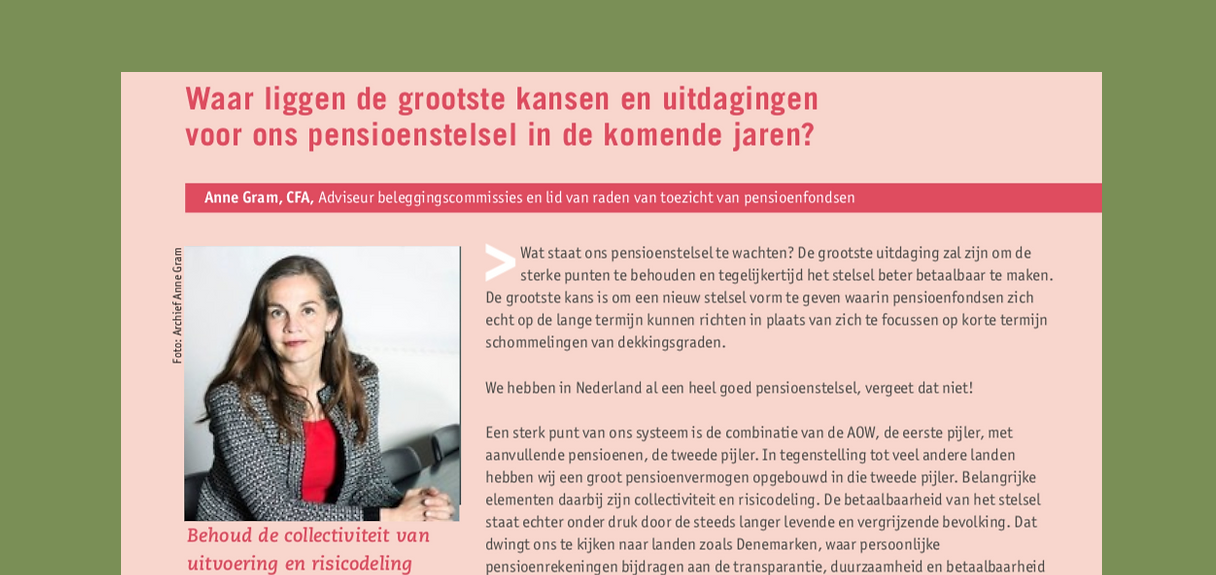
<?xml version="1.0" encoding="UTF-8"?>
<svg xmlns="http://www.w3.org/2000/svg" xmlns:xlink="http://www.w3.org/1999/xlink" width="1216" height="575">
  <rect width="100%" height="100%" fill="#7a8f56" />
  <image x="121" y="72" width="981" height="503" xlink:href="image1.png" />
</svg>
